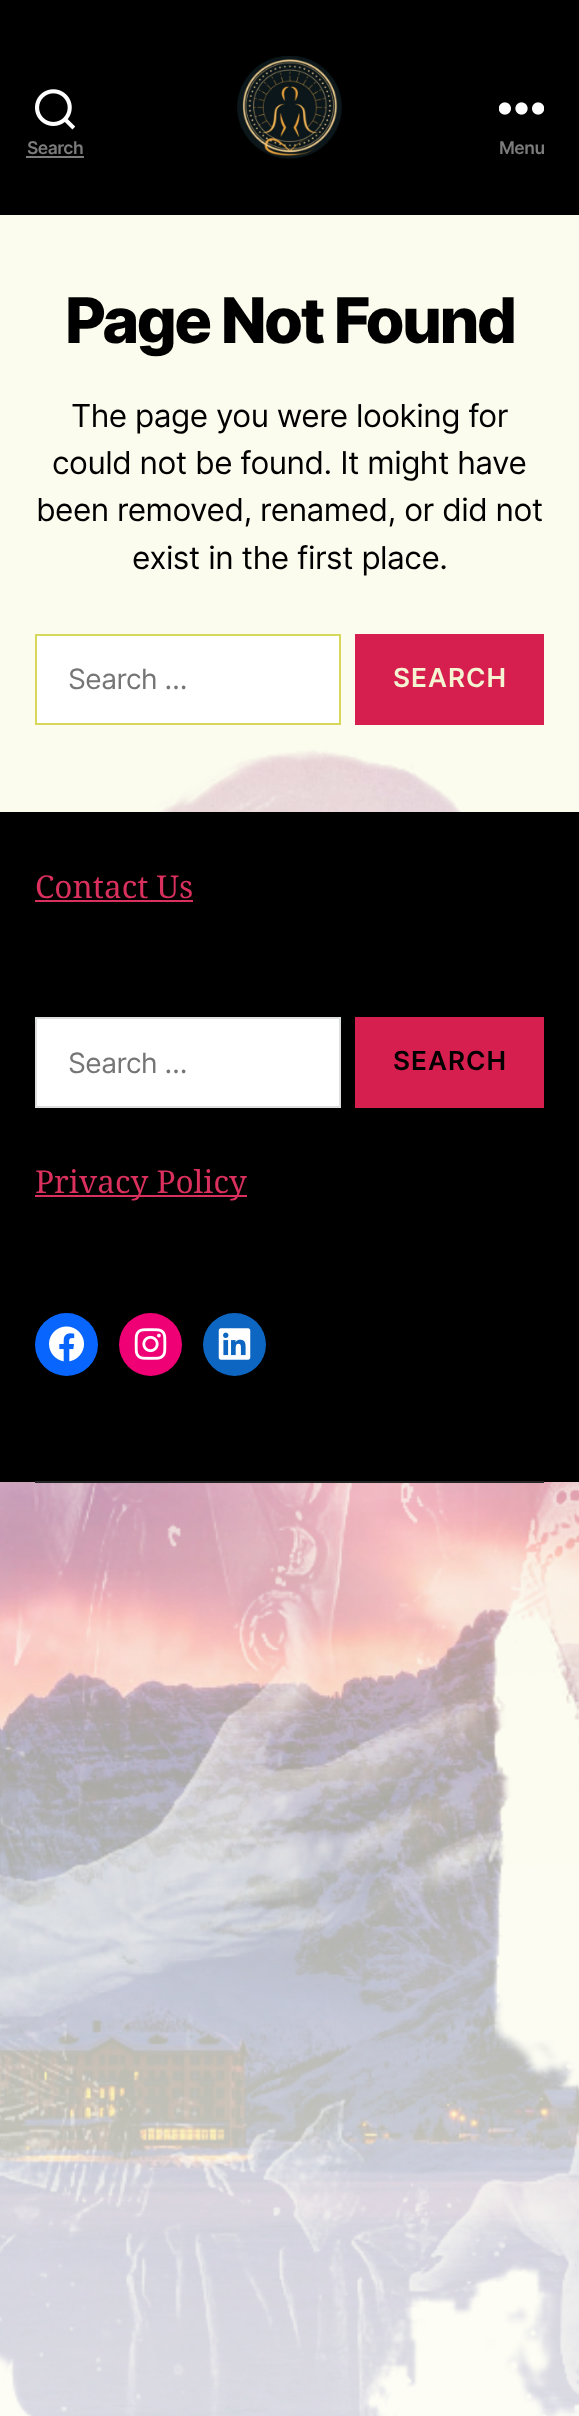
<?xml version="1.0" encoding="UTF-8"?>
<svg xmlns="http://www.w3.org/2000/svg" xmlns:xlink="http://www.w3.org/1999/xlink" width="579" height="2416">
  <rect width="100%" height="100%" fill="#f4f4d2" />
  <image x="0" y="215" width="579" height="2201" xlink:href="image1.png" />
  <rect width="579" height="215" fill="#000000" />
  <image x="35" y="89" width="40" height="41" xlink:href="image2.png" />
  <rect x="26" y="156" width="58" height="2" fill="#7c7c7c" />
  <image x="237" y="56" width="105" height="103" xlink:href="image3.png" />
  <image x="499" y="102" width="45" height="13" xlink:href="image4.png" />
  <rect x="36" y="635" width="304" height="89" fill="#ffffff" stroke="#d7d75a" stroke-width="2" />
  <rect x="355" y="634" width="189" height="91" fill="#d61e4f" />
  <rect y="812" width="579" height="670" fill="#000000" />
  <rect x="35" y="1481" width="509" height="2" fill="#262626" />
  <rect x="35" y="900" width="158" height="2" fill="#d9305d" />
  <rect x="36" y="1018" width="304" height="89" fill="#ffffff" stroke="#dedfdf" stroke-width="2" />
  <rect x="355" y="1017" width="189" height="91" fill="#d61e4f" />
  <rect x="35" y="1195" width="212" height="2" fill="#d9305d" />
  <circle cx="66.5" cy="1344.5" r="31.5" fill="#0866ff" />
  <image x="49" y="1326" width="35" height="36" xlink:href="image5.png" />
  <circle cx="150.5" cy="1344.5" r="31.5" fill="#f00075" />
  <image x="134" y="1328" width="33" height="32" xlink:href="image6.png" />
  <circle cx="234.5" cy="1344.5" r="31.5" fill="#0d66c2" />
  <image x="218" y="1328" width="33" height="32" xlink:href="image7.png" />
  <text x="27" y="154" style="font-family: Inter; font-size: 17.5px; font-weight: 600; letter-spacing: -0.5px; fill: #7c7c7c">Search</text>
  <text x="499" y="154" style="font-family: Inter; font-size: 17.5px; font-weight: 600; letter-spacing: -0.5px; fill: #7c7c7c">Menu</text>
  <text x="65" y="343" style="font-family: Inter; font-size: 63px; font-weight: 800; letter-spacing: -2.6px; fill: #000000">Page Not Found</text>
  <text x="71" y="427" style="font-family: Inter; font-size: 31.5px; letter-spacing: -0.5px; fill: #000000">The page you were looking for</text>
  <text x="52" y="474" style="font-family: Inter; font-size: 31.5px; letter-spacing: -0.5px; fill: #000000">could not be found. It might have</text>
  <text x="36" y="521" style="font-family: Inter; font-size: 31.5px; letter-spacing: -0.5px; fill: #000000">been removed, renamed, or did not</text>
  <text x="132" y="569" style="font-family: Inter; font-size: 31.5px; letter-spacing: -0.5px; fill: #000000">exist in the first place.</text>
  <text x="68" y="689" style="font-family: Inter; font-size: 28px; letter-spacing: -0.5px; fill: #757575">Search …</text>
  <text x="393" y="687" style="font-family: Inter; font-size: 26.25px; font-weight: 600; letter-spacing: 1px; fill: #f4f4d2">SEARCH</text>
  <text x="35" y="898" style="font-family: Noto Serif; font-size: 31.5px; fill: #d9305d">Contact Us</text>
  <text x="68" y="1073" style="font-family: Inter; font-size: 28px; letter-spacing: -0.5px; fill: #757575">Search …</text>
  <text x="393" y="1070" style="font-family: Inter; font-size: 26.25px; font-weight: 600; letter-spacing: 1px; fill: #000000">SEARCH</text>
  <text x="35" y="1193" style="font-family: Noto Serif; font-size: 31.5px; fill: #d9305d">Privacy Policy</text>
</svg>
